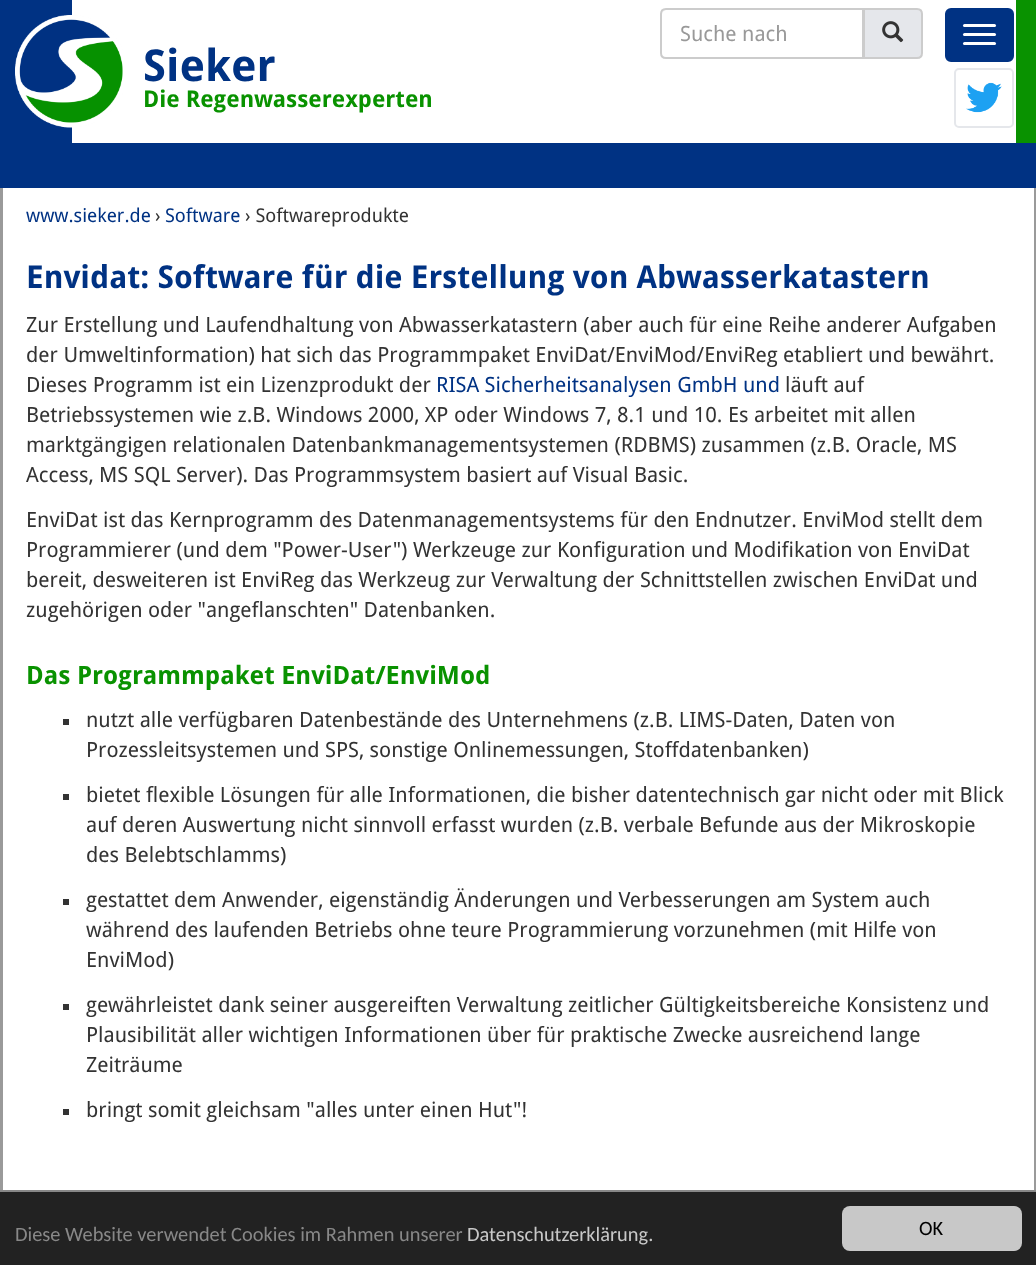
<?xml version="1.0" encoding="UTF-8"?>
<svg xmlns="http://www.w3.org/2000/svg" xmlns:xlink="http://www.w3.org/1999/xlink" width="1036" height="1265">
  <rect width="100%" height="100%" fill="#ffffff" />
  <rect width="72" height="143" fill="#003283" />
  <rect x="1016" width="20" height="143" fill="#099200" />
  <image x="15" y="15" width="108" height="113" xlink:href="image1.png" />
  <path d="M 666 10 h 196 v 47 h 1 v -48 h -196 c -3 0 -5 3 -5 6 c 0 -2 2 -5 4 -5 z" fill="#ececec" />
  <path d="M 666 9 h 197 v 49 h -197 c -3 0 -5 -2 -5 -5 v -39 c 0 -3 2 -5 5 -5 z" fill="none" stroke="#cccccc" stroke-width="2" />
  <path d="M 864 9 h 53 c 3 0 5 2 5 5 v 39 c 0 3 -2 5 -5 5 h -53 z" fill="#e5e7eb" stroke="#cccccc" stroke-width="2" />
  <image x="882" y="21" width="22" height="22" xlink:href="image2.png" />
  <rect x="946.5" y="9.5" width="66" height="51" rx="4.5" fill="#003283" stroke="#003283" stroke-width="3" />
  <rect x="963" y="24" width="33" height="3" rx="1.5" fill="#ffffff" />
  <rect x="963" y="33" width="33" height="3" rx="1.5" fill="#ffffff" />
  <rect x="963" y="42" width="33" height="3" rx="1.5" fill="#ffffff" />
  <rect x="955" y="69" width="58" height="58" rx="4" fill="none" stroke="#e5e7eb" stroke-width="2" />
  <image x="966" y="82" width="36" height="31" xlink:href="image3.png" />
  <rect y="143" width="1036" height="45" fill="#003283" />
  <rect x="1034" y="188" width="2" height="1002" fill="#9a9a9a" />
  <rect y="188" width="3" height="1002" fill="#9a9a9a" />
  <rect x="63" y="719" width="6" height="6" fill="#333333" />
  <rect x="63" y="794" width="6" height="6" fill="#333333" />
  <rect x="63" y="899" width="6" height="6" fill="#333333" />
  <rect x="63" y="1004" width="6" height="6" fill="#333333" />
  <rect x="63" y="1109" width="6" height="6" fill="#333333" />
  <rect y="1192" width="1036" height="73" fill="#222222" />
  <rect y="1190" width="1036" height="2" fill="#888888" />
  <rect x="842" y="1206" width="180" height="45" rx="8" fill="#c8c8c8" />
  <text x="680" y="41" style="font-family: Droid Sans; font-size: 21px; fill: #999999">Suche nach</text>
  <text x="143" y="81" style="font-family: Droid Sans; font-size: 44px; font-weight: bold; fill: #003283">Sieker</text>
  <text x="143" y="107" style="font-family: Droid Sans; font-size: 23.1px; font-weight: bold; fill: #099200">Die Regenwasserexperten</text>
  <text x="26" y="222" style="font-family: Droid Sans; font-size: 19px; fill: #003283">www.sieker.de</text>
  <text x="155" y="222" style="font-family: Droid Sans; font-size: 19px; fill: #333333">›</text>
  <text x="165" y="222" style="font-family: Droid Sans; font-size: 19px; fill: #003283">Software</text>
  <text x="245" y="222" style="font-family: Droid Sans; font-size: 19px; fill: #333333">› Softwareprodukte</text>
  <text x="26" y="288" style="font-family: Droid Sans; font-size: 31.5px; font-weight: bold; fill: #003283">Envidat: Software für die Erstellung von Abwasserkatastern</text>
  <text x="26" y="332" style="font-family: Droid Sans; font-size: 21px; fill: #333333">Zur Erstellung und Laufendhaltung von Abwasserkatastern (aber auch für eine Reihe anderer Aufgaben</text>
  <text x="26" y="362" style="font-family: Droid Sans; font-size: 21px; fill: #333333">der Umweltinformation) hat sich das Programmpaket EnviDat/EnviMod/EnviReg etabliert und bewährt.</text>
  <text x="26" y="392" style="font-family: Droid Sans; font-size: 21px; fill: #333333">Dieses Programm ist ein Lizenzprodukt der</text>
  <text x="436" y="392" style="font-family: Droid Sans; font-size: 21px; fill: #003283">RISA Sicherheitsanalysen GmbH und</text>
  <text x="785" y="392" style="font-family: Droid Sans; font-size: 21px; fill: #333333">läuft auf</text>
  <text x="26" y="422" style="font-family: Droid Sans; font-size: 21px; fill: #333333">Betriebssystemen wie z.B. Windows 2000, XP oder Windows 7, 8.1 und 10. Es arbeitet mit allen</text>
  <text x="26" y="452" style="font-family: Droid Sans; font-size: 21px; fill: #333333">marktgängigen relationalen Datenbankmanagementsystemen (RDBMS) zusammen (z.B. Oracle, MS</text>
  <text x="26" y="482" style="font-family: Droid Sans; font-size: 21px; fill: #333333">Access, MS SQL Server). Das Programmsystem basiert auf Visual Basic.</text>
  <text x="26" y="527" style="font-family: Droid Sans; font-size: 21px; fill: #333333">EnviDat ist das Kernprogramm des Datenmanagementsystems für den Endnutzer. EnviMod stellt dem</text>
  <text x="26" y="557" style="font-family: Droid Sans; font-size: 21px; fill: #333333">Programmierer (und dem "Power-User") Werkzeuge zur Konfiguration und Modifikation von EnviDat</text>
  <text x="26" y="587" style="font-family: Droid Sans; font-size: 21px; fill: #333333">bereit, desweiteren ist EnviReg das Werkzeug zur Verwaltung der Schnittstellen zwischen EnviDat und</text>
  <text x="26" y="617" style="font-family: Droid Sans; font-size: 21px; fill: #333333">zugehörigen oder "angeflanschten" Datenbanken.</text>
  <text x="26" y="684" style="font-family: Droid Sans; font-size: 25.25px; font-weight: bold; fill: #099200">Das Programmpaket EnviDat/EnviMod</text>
  <text x="86" y="727" style="font-family: Droid Sans; font-size: 21px; fill: #333333">nutzt alle verfügbaren Datenbestände des Unternehmens (z.B. LIMS-Daten, Daten von</text>
  <text x="86" y="757" style="font-family: Droid Sans; font-size: 21px; fill: #333333">Prozessleitsystemen und SPS, sonstige Onlinemessungen, Stoffdatenbanken)</text>
  <text x="86" y="802" style="font-family: Droid Sans; font-size: 21px; fill: #333333">bietet flexible Lösungen für alle Informationen, die bisher datentechnisch gar nicht oder mit Blick</text>
  <text x="86" y="832" style="font-family: Droid Sans; font-size: 21px; fill: #333333">auf deren Auswertung nicht sinnvoll erfasst wurden (z.B. verbale Befunde aus der Mikroskopie</text>
  <text x="86" y="862" style="font-family: Droid Sans; font-size: 21px; fill: #333333">des Belebtschlamms)</text>
  <text x="86" y="907" style="font-family: Droid Sans; font-size: 21px; fill: #333333">gestattet dem Anwender, eigenständig Änderungen und Verbesserungen am System auch</text>
  <text x="86" y="937" style="font-family: Droid Sans; font-size: 21px; fill: #333333">während des laufenden Betriebs ohne teure Programmierung vorzunehmen (mit Hilfe von</text>
  <text x="86" y="967" style="font-family: Droid Sans; font-size: 21px; fill: #333333">EnviMod)</text>
  <text x="86" y="1012" style="font-family: Droid Sans; font-size: 21px; fill: #333333">gewährleistet dank seiner ausgereiften Verwaltung zeitlicher Gültigkeitsbereiche Konsistenz und</text>
  <text x="86" y="1042" style="font-family: Droid Sans; font-size: 21px; fill: #333333">Plausibilität aller wichtigen Informationen über für praktische Zwecke ausreichend lange</text>
  <text x="86" y="1072" style="font-family: Droid Sans; font-size: 21px; fill: #333333">Zeiträume</text>
  <text x="86" y="1117" style="font-family: Droid Sans; font-size: 21px; fill: #333333">bringt somit gleichsam "alles unter einen Hut"!</text>
  <text x="15" y="1241" style="font-family: Carlito; font-size: 20.4px; fill: #888888">Diese Website verwendet Cookies im Rahmen unserer</text>
  <text x="467" y="1241" style="font-family: Carlito; font-size: 20.4px; fill: #c8c8c8">Datenschutzerklärung.</text>
  <text x="919" y="1235" style="font-family: Carlito; font-size: 20.4px; fill: #000000">OK</text>
</svg>
